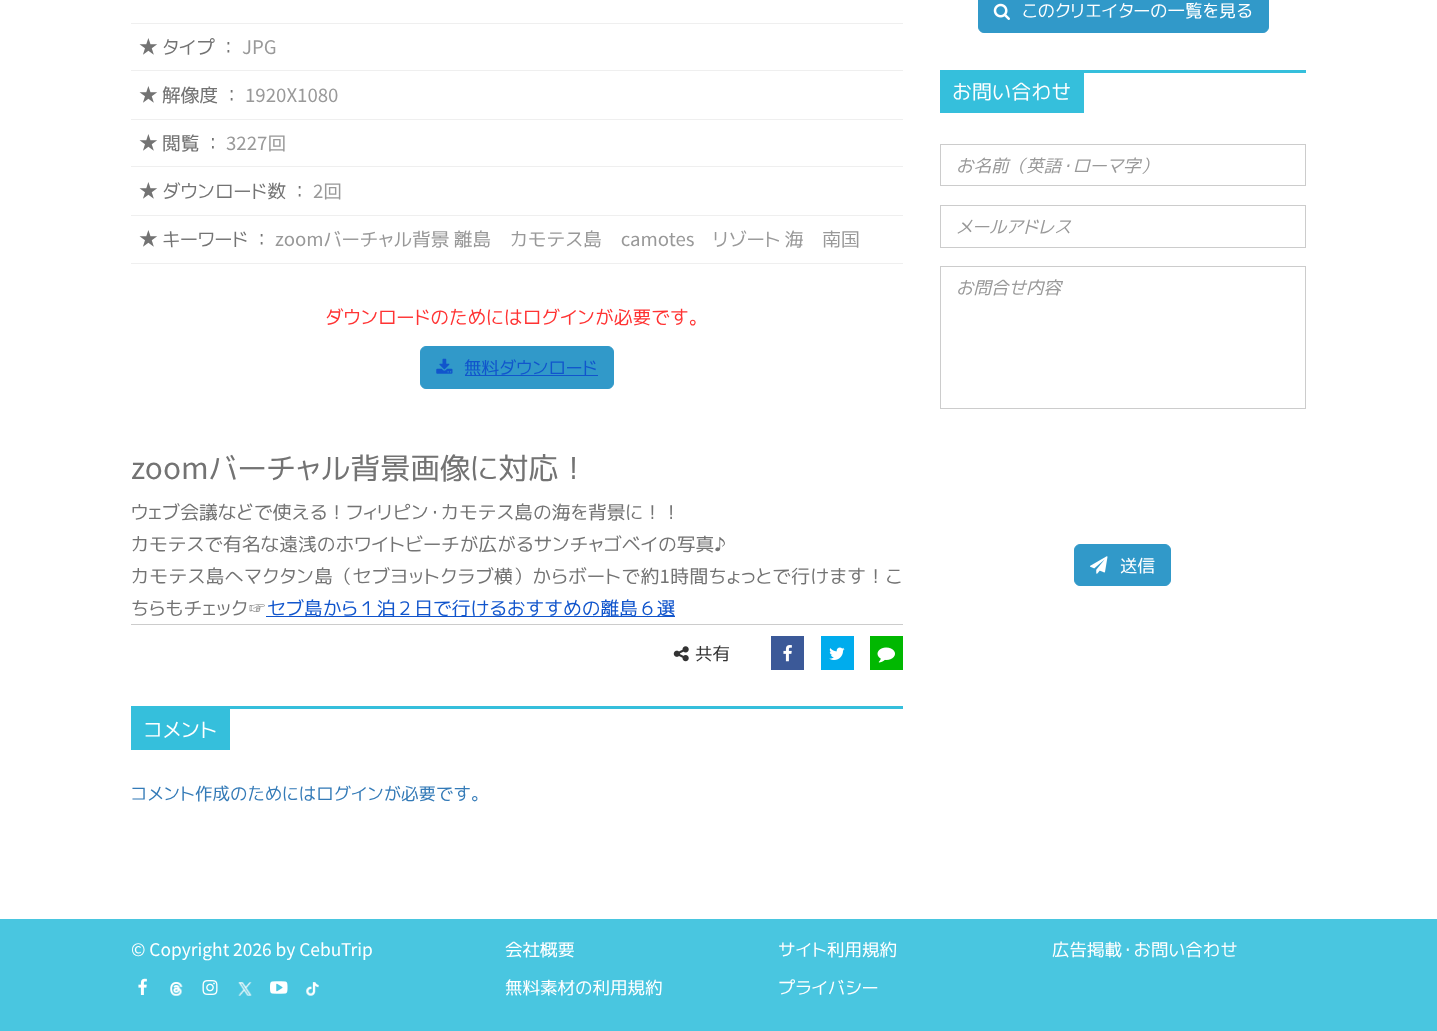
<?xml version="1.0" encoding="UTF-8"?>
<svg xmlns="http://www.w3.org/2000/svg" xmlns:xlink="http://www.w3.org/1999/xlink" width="1437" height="1031">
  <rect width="100%" height="100%" fill="#ffffff" />
  <rect x="131" y="23" width="772" height="1" fill="#efefef" />
  <rect x="131" y="70" width="772" height="1" fill="#efefef" />
  <rect x="131" y="119" width="772" height="1" fill="#efefef" />
  <rect x="131" y="166" width="772" height="1" fill="#efefef" />
  <rect x="131" y="215" width="772" height="1" fill="#efefef" />
  <rect x="131" y="263" width="772" height="1" fill="#efefef" />
  <rect x="420.5" y="346.5" width="193" height="42" rx="5.5" fill="#3199c9" stroke="#3199c9" />
  <image x="436" y="358" width="17" height="16" xlink:href="image1.png" />
  <rect x="465" y="375" width="133" height="1" fill="#1155cc" />
  <rect x="266" y="616" width="409" height="1" fill="#1155cc" />
  <rect x="131" y="624" width="772" height="1" fill="#cccccc" />
  <image x="673" y="646" width="16" height="16" xlink:href="image2.png" />
  <rect x="771" y="636" width="33" height="34" fill="#3b5998" />
  <image x="783" y="645" width="9" height="17" xlink:href="image3.png" />
  <rect x="821" y="636" width="33" height="34" fill="#00aced" />
  <image x="829" y="647" width="16" height="13" xlink:href="image4.png" />
  <rect x="870" y="636" width="33" height="34" fill="#01b801" />
  <image x="877" y="647" width="18" height="16" xlink:href="image5.png" />
  <rect x="131" y="706" width="772" height="3" fill="#35bfdc" />
  <rect x="131" y="709" width="99" height="41" fill="#35bfdc" />
  <rect x="978.5" y="-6.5" width="290" height="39" rx="5.5" fill="#3199c9" stroke="#3199c9" />
  <image x="993" y="3" width="17" height="17" xlink:href="image6.png" />
  <rect x="940" y="70" width="366" height="3" fill="#35bfdc" />
  <rect x="940" y="73" width="144" height="40" fill="#35bfdc" />
  <rect x="940.5" y="144.5" width="365" height="41" fill="none" stroke="#cccccc" />
  <rect x="940.5" y="205.5" width="365" height="42" fill="none" stroke="#cccccc" />
  <rect x="940.5" y="266.5" width="365" height="142" fill="none" stroke="#cccccc" />
  <rect x="1074.5" y="544.5" width="96" height="41" rx="5.5" fill="#3199c9" stroke="#3199c9" />
  <image x="1090" y="556" width="18" height="18" xlink:href="image7.png" />
  <rect y="919" width="1437" height="112" fill="#49c6e0" />
  <image x="138" y="978" width="9" height="17" xlink:href="image8.png" />
  <image x="170" y="982" width="13" height="14" xlink:href="image9.png" />
  <image x="202" y="980" width="16" height="15" xlink:href="image10.png" />
  <image x="238" y="982" width="14" height="14" xlink:href="image11.png" />
  <image x="270" y="981" width="18" height="13" xlink:href="image12.png" />
  <image x="306" y="982" width="13" height="14" xlink:href="image13.png" />
  <text x="139" y="54" style="font-family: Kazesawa; font-size: 18.75px; fill: #737373">★ タイプ ：</text>
  <text x="242" y="54" style="font-family: Kazesawa; font-size: 18.75px; fill: #999999">JPG</text>
  <text x="139" y="102" style="font-family: Kazesawa; font-size: 18.75px; fill: #737373">★ 解像度 ：</text>
  <text x="245" y="102" style="font-family: Kazesawa; font-size: 18.75px; fill: #999999">1920X1080</text>
  <text x="139" y="150" style="font-family: Kazesawa; font-size: 18.75px; fill: #737373">★ 閲覧 ：</text>
  <text x="226" y="150" style="font-family: Kazesawa; font-size: 18.75px; fill: #999999">3227回</text>
  <text x="139" y="198" style="font-family: Kazesawa; font-size: 18.75px; fill: #737373">★ ダウンロード数 ：</text>
  <text x="313" y="198" style="font-family: Kazesawa; font-size: 18.75px; fill: #999999">2回</text>
  <text x="139" y="246" style="font-family: Kazesawa; font-size: 18.75px; fill: #737373">★ キーワード ：</text>
  <text x="275" y="246" style="font-family: Kazesawa; font-size: 18.75px; fill: #999999">zoomバーチャル背景 離島　カモテス島　camotes　リゾート 海　南国</text>
  <text x="325" y="324" style="font-family: Kazesawa; font-size: 18.75px; fill: #ff3333">ダウンロードのためにはログインが必要です。</text>
  <text x="464" y="374" style="font-family: Kazesawa; font-size: 17.5px; fill: #1155cc">無料ダウンロード</text>
  <text x="131" y="479" style="font-family: Kazesawa; font-size: 30px; fill: #737373">zoomバーチャル背景画像に対応！</text>
  <text x="131" y="519" style="font-family: Kazesawa; font-size: 18.75px; fill: #737373">ウェブ会議などで使える！フィリピン・カモテス島の海を背景に！！</text>
  <text x="131" y="551" style="font-family: Kazesawa; font-size: 18.75px; fill: #737373">カモテスで有名な遠浅のホワイトビーチが広がるサンチャゴベイの写真♪</text>
  <text x="131" y="583" style="font-family: Kazesawa; font-size: 18.75px; letter-spacing: 0.35px; fill: #737373">カモテス島へマクタン島（セブヨットクラブ横）からボートで約1時間ちょっとで行けます！こ</text>
  <text x="131" y="615" style="font-family: Kazesawa; font-size: 18.75px; fill: #737373">ちらもチェック</text>
  <text x="248" y="615" style="font-family: WenQuanYi Zen Hei; font-size: 18.75px; font-weight: 500; fill: #737373">☞</text>
  <text x="267" y="615" style="font-family: Kazesawa; font-size: 18.75px; fill: #1155cc">セブ島から１泊２日で行けるおすすめの離島６選</text>
  <text x="695" y="660" style="font-family: Kazesawa; font-size: 17.5px; fill: #333333">共有</text>
  <text x="144" y="737" style="font-family: Kazesawa; font-size: 20px; fill: #ffffff">コメント</text>
  <text x="131" y="800" style="font-family: Kazesawa; font-size: 17.5px; fill: #337ab7">コメント作成のためにはログインが必要です。</text>
  <text x="1022" y="17" style="font-family: Kazesawa; font-size: 17.5px; fill: #ffffff">このクリエイターの一覧を見る</text>
  <text x="952" y="99" style="font-family: Kazesawa; font-size: 20px; fill: #ffffff">お問い合わせ</text>
  <text x="956" y="172" style="font-family: Kazesawa; font-size: 17.5px; font-style: italic; fill: #999999">お名前（英語・ローマ字）</text>
  <text x="956" y="233" style="font-family: Kazesawa; font-size: 17.5px; font-style: italic; fill: #999999">メールアドレス</text>
  <text x="956" y="294" style="font-family: Kazesawa; font-size: 17.5px; font-style: italic; fill: #999999">お問合せ内容</text>
  <text x="1120" y="572" style="font-family: Kazesawa; font-size: 17.5px; fill: #ffffff">送信</text>
  <text x="131" y="956" style="font-family: Kazesawa; font-size: 17.5px; fill: #ffffff">© Copyright 2026 by CebuTrip</text>
  <text x="505" y="956" style="font-family: Kazesawa; font-size: 17.5px; fill: #ffffff">会社概要</text>
  <text x="778" y="956" style="font-family: Kazesawa; font-size: 17.5px; fill: #ffffff">サイト利用規約</text>
  <text x="1052" y="956" style="font-family: Kazesawa; font-size: 17.5px; fill: #ffffff">広告掲載・お問い合わせ</text>
  <text x="505" y="994" style="font-family: Kazesawa; font-size: 17.5px; fill: #ffffff">無料素材の利用規約</text>
  <text x="778" y="994" style="font-family: Kazesawa; font-size: 17.5px; fill: #ffffff">プライバシー</text>
</svg>
